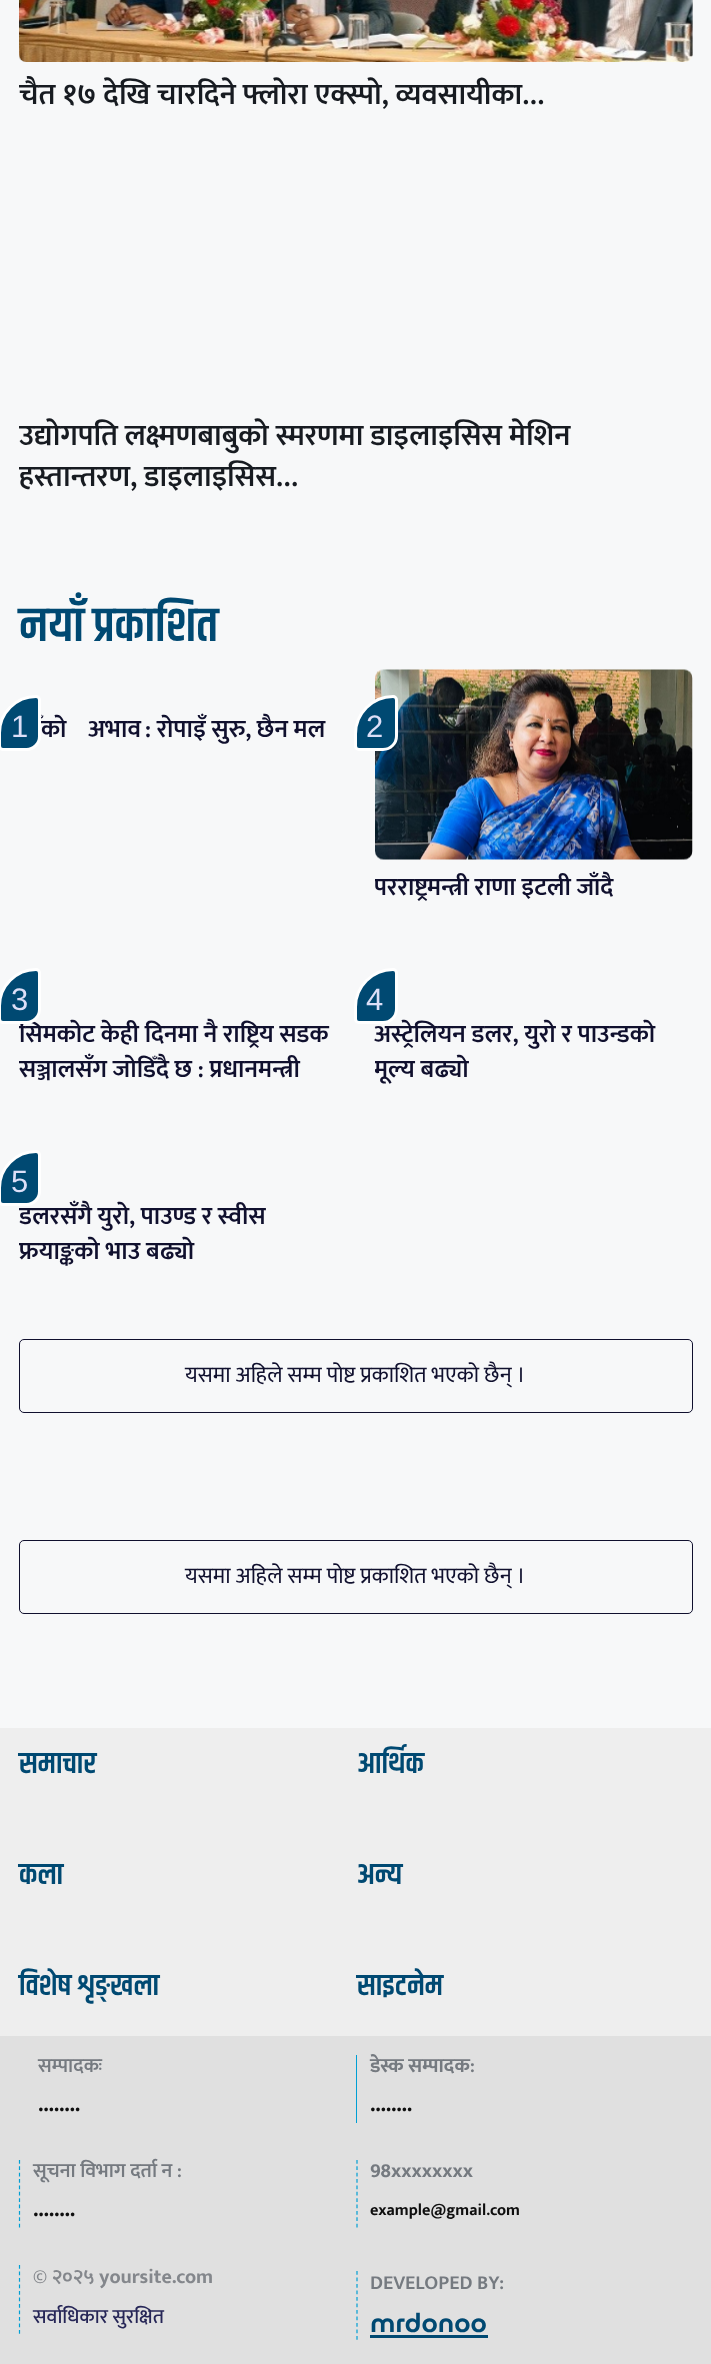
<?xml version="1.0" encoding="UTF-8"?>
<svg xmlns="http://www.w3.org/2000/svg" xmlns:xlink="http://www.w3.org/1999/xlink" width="711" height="2364">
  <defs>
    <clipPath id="clip1"><rect x="19" width="674" height="116" /></clipPath>
    <clipPath id="clip2"><rect x="19" y="154" width="674" height="345" /></clipPath>
    <clipPath id="clip3"><rect x="375" y="670" width="318" height="235" /></clipPath>
    <clipPath id="clip4"><rect x="19" y="943" width="319" height="145" /></clipPath>
    <clipPath id="clip5"><rect x="375" y="943" width="318" height="145" /></clipPath>
    <clipPath id="clip6"><rect x="19" y="1125" width="319" height="144" /></clipPath>
  </defs>
  <rect width="100%" height="100%" fill="#f7f8f9" />
  <image x="19" y="0" width="674" height="62" xlink:href="image1.png" />
  <image x="375" y="669" width="318" height="191" xlink:href="image2.png" />
  <path d="M 393 696.5 c 2 0 3.5 1.5 3.5 3.5 v 36 c 0 7.5 -6 13.5 -13.5 13.5 h -24 c -2 0 -3.5 -1.5 -3.5 -3.5 v -12 c 0 -20.5 17 -37.5 37.5 -37.5 z" fill="#004972" stroke="#ffffff" stroke-width="3" />
  <rect x="19.5" y="1339.5" width="673" height="73" rx="4.5" fill="none" stroke="#10102e" />
  <rect x="19.5" y="1540.5" width="673" height="73" rx="4.5" fill="none" stroke="#10102e" />
  <rect y="1728" width="711" height="308" fill="#eeeeee" />
  <rect y="2036" width="711" height="328" fill="#e0e0e0" />
  <rect x="356" y="2055" width="1" height="68" fill="#009fd4" />
  <path d="M 19.5 2160 v 67.5" fill="none" stroke="#009fd4" stroke-width="1.2" stroke-dasharray="3.75 2.62" />
  <path d="M 357 2160 v 67.5" fill="none" stroke="#009fd4" stroke-width="1.2" stroke-dasharray="3.75 2.62" />
  <path d="M 19.5 2265 v 69" fill="none" stroke="#009fd4" stroke-width="1.2" stroke-dasharray="3.75 2.75" />
  <path d="M 357 2271 v 69" fill="none" stroke="#009fd4" stroke-width="1.2" stroke-dasharray="3.75 2.75" />
  <rect x="370" y="2335" width="118" height="3" fill="#004972" />
  <g clip-path="url(#clip1)">
    <text x="19" y="104" style="font-family: Mukta; font-size: 30px; font-weight: 600; fill: #171b21">चैत १७ देखि चारदिने फ्लोरा एक्स्पो, व्यवसायीका…</text>
  </g>
  <g clip-path="url(#clip2)">
    <text x="19" y="445" style="font-family: Mukta; font-size: 30px; font-weight: 600; fill: #171b21">उद्योगपति लक्ष्मणबाबुको स्मरणमा डाइलाइसिस मेशिन</text>
    <text x="19" y="486" style="font-family: Mukta; font-size: 30px; font-weight: 600; fill: #171b21">हस्तान्तरण, डाइलाइसिस…</text>
  </g>
  <text x="19" y="641" style="font-family: Khand; font-size: 48.75px; font-weight: 600; fill: #004972">नयाँ प्रकाशित</text>
  <text x="41" y="737" style="font-family: Mukta; font-size: 25px; font-weight: 600; fill: #10102e">ैँको</text>
  <text x="88" y="737" style="font-family: Mukta; font-size: 25px; font-weight: 600; fill: #10102e">अभाव</text>
  <text x="145" y="737" style="font-family: Mukta; font-size: 25px; font-weight: 600; fill: #10102e">: रोपाइँ सुरु, छैन मल</text>
  <path d="M 36 696.5 c 2 0 3.5 1.5 3.5 3.5 v 36.5 c 0 7 -6 13 -13 13 h -23.5 c -2 0 -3.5 -1.5 -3.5 -3.5 v -13 c 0 -20 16.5 -36.5 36.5 -36.5 z" fill="#004972" stroke="#ffffff" stroke-width="3" />
  <text x="11" y="737" style="font-family: Liberation Sans; font-size: 31px; fill: #dddff8">1</text>
  <text x="366" y="737" style="font-family: Liberation Sans; font-size: 31px; fill: #dddff8">2</text>
  <g clip-path="url(#clip3)">
    <text x="374" y="895" style="font-family: Mukta; font-size: 25px; font-weight: 600; fill: #10102e">परराष्ट्रमन्त्री राणा इटली जाँदै</text>
  </g>
  <g clip-path="url(#clip4)">
    <text x="19" y="1042" style="font-family: Mukta; font-size: 25px; font-weight: 600; fill: #10102e">सिमकोट केही दिनमा नै राष्ट्रिय सडक</text>
  </g>
  <path d="M 36 969.5 c 2 0 3.5 1.5 3.5 3.5 v 36.5 c 0 7 -6 13 -13 13 h -23.5 c -2 0 -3.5 -1.5 -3.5 -3.5 v -13 c 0 -20 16.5 -36.5 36.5 -36.5 z" fill="#004972" stroke="#ffffff" stroke-width="3" />
  <text x="11" y="1010" style="font-family: Liberation Sans; font-size: 31px; fill: #dddff8">3</text>
  <g clip-path="url(#clip4)">
    <text x="19" y="1077" style="font-family: Mukta; font-size: 25px; font-weight: 600; fill: #10102e">सञ्जालसँग जोडिँदै छ : प्रधानमन्त्री</text>
  </g>
  <text x="374" y="1042" style="font-family: Mukta; font-size: 25px; font-weight: 600; fill: #10102e">अस्ट्रेलियन डलर, युरो र पाउन्डको</text>
  <path d="M 393 969.5 c 2 0 3.5 1.5 3.5 3.5 v 36 c 0 7.5 -6 13.5 -13.5 13.5 h -24 c -2 0 -3.5 -1.5 -3.5 -3.5 v -12 c 0 -20.5 17 -37.5 37.5 -37.5 z" fill="#004972" stroke="#ffffff" stroke-width="3" />
  <text x="366" y="1010" style="font-family: Liberation Sans; font-size: 31px; fill: #dddff8">4</text>
  <g clip-path="url(#clip5)">
    <text x="374" y="1077" style="font-family: Mukta; font-size: 25px; font-weight: 600; fill: #10102e">मूल्य बढ्यो</text>
  </g>
  <g clip-path="url(#clip6)">
    <text x="19" y="1224" style="font-family: Mukta; font-size: 25px; font-weight: 600; fill: #10102e">डलरसँगै युरो, पाउण्ड र स्वीस</text>
  </g>
  <path d="M 36 1151.5 c 2 0 3.5 1.5 3.5 3.5 v 36.5 c 0 7 -6 13 -13 13 h -23.5 c -2 0 -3.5 -1.5 -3.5 -3.5 v -13 c 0 -20 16.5 -36.5 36.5 -36.5 z" fill="#004972" stroke="#ffffff" stroke-width="3" />
  <text x="11" y="1192" style="font-family: Liberation Sans; font-size: 31px; fill: #dddff8">5</text>
  <g clip-path="url(#clip6)">
    <text x="19" y="1259" style="font-family: Mukta; font-size: 25px; font-weight: 600; fill: #10102e">फ्रयाङ्कको भाउ बढ्यो</text>
  </g>
  <text x="185" y="1382" style="font-family: Mukta; font-size: 22.5px; fill: #10102e">यसमा अहिले सम्म पाेष्ट प्रकाशित भएकाे छैन् ।</text>
  <text x="185" y="1583" style="font-family: Mukta; font-size: 22.5px; fill: #10102e">यसमा अहिले सम्म पाेष्ट प्रकाशित भएकाे छैन् ।</text>
  <text x="19" y="1773" style="font-family: Khand; font-size: 30px; font-weight: 600; fill: #004972">समाचार</text>
  <text x="357" y="1773" style="font-family: Khand; font-size: 30px; font-weight: 600; fill: #004972">आर्थिक</text>
  <text x="19" y="1884" style="font-family: Khand; font-size: 30px; font-weight: 600; fill: #004972">कला</text>
  <text x="357" y="1884" style="font-family: Khand; font-size: 30px; font-weight: 600; fill: #004972">अन्य</text>
  <text x="19" y="1995" style="font-family: Khand; font-size: 30px; font-weight: 600; fill: #004972">विशेष शृङ्खला</text>
  <text x="357" y="1995" style="font-family: Khand; font-size: 30px; font-weight: 600; fill: #004972">साइटनेम</text>
  <text x="38" y="2072" style="font-family: Mukta; font-size: 20px; font-weight: 600; fill: #757a80">सम्पादकः</text>
  <text x="38" y="2111" style="font-family: Mukta; font-size: 22.5px; font-weight: bold; fill: #0f0f0f">........</text>
  <text x="370" y="2072" style="font-family: Mukta; font-size: 20px; font-weight: bold; fill: #757a80">डेस्क सम्पादक</text>
  <text x="470" y="2072" style="font-family: Mukta; font-size: 20px; font-weight: 600; fill: #757a80">:</text>
  <text x="370" y="2111" style="font-family: Mukta; font-size: 22.5px; font-weight: bold; fill: #0f0f0f">........</text>
  <text x="33" y="2177" style="font-family: Mukta; font-size: 20px; font-weight: 600; fill: #757a80">सूचना विभाग दर्ता न :</text>
  <text x="33" y="2216" style="font-family: Mukta; font-size: 22.5px; font-weight: bold; fill: #0f0f0f">........</text>
  <text x="370" y="2177" style="font-family: Mukta; font-size: 20px; font-weight: bold; fill: #757a80">98xxxxxxxx</text>
  <text x="370" y="2215" style="font-family: Mukta; font-size: 16.25px; font-weight: bold; fill: #0f0f0f">example@gmail.com</text>
  <text x="33" y="2283" style="font-family: Mukta; font-size: 20px; font-weight: 600; fill: #84878c">© २०२५</text>
  <text x="99" y="2283" style="font-family: Mukta; font-size: 20px; font-weight: bold; fill: #84878c">yoursite.com</text>
  <text x="33" y="2323" style="font-family: Mukta; font-size: 20px; font-weight: 500; fill: #262657">सर्वाधिकार सुरक्षित</text>
  <text x="370" y="2289" style="font-family: Mukta; font-size: 20px; font-weight: 600; fill: #757a80">DEVELOPED BY:</text>
  <text x="370" y="2332" style="font-family: MuseoModerno; font-size: 26.25px; font-weight: 600; fill: #004972">mrdonoo</text>
</svg>
